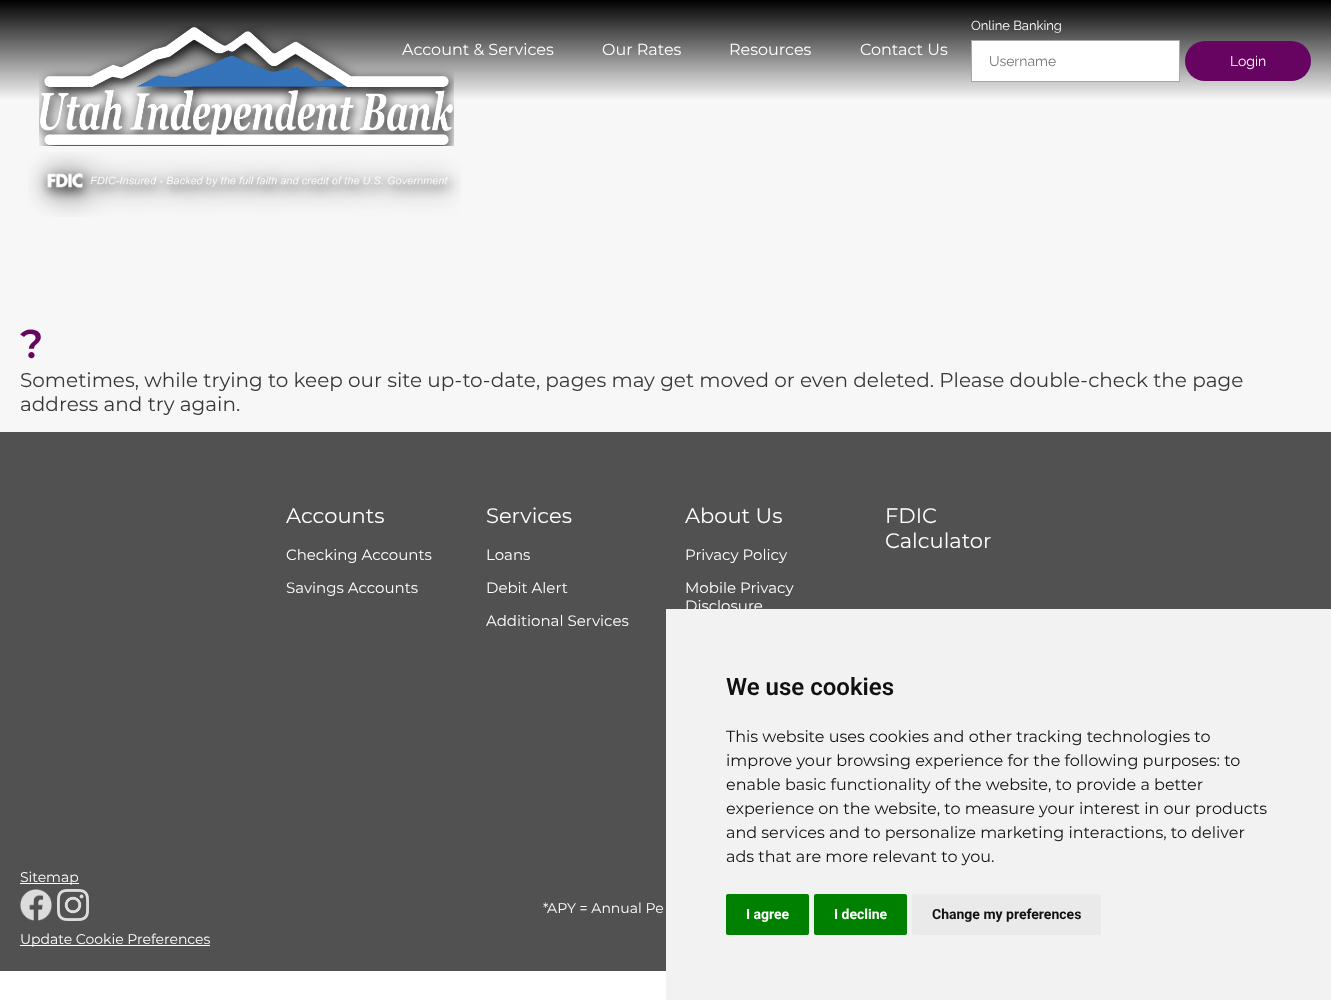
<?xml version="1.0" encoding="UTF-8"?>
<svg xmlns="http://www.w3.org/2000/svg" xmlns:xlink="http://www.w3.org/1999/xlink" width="1331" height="1000">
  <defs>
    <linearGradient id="g1" gradientUnits="userSpaceOnUse" x1="666" y1="0" x2="666" y2="100"><stop offset="0" stop-color="#000000" /><stop offset="1" stop-color="#f7f7f7" /></linearGradient>
  </defs>
  <rect width="100%" height="100%" fill="#ffffff" />
  <rect width="1331" height="100" fill="url(#g1)" />
  <rect y="100" width="1331" height="332" fill="#f7f7f7" />
  <image x="39" y="26" width="415" height="120" xlink:href="image1.png" />
  <image x="28" y="152" width="433" height="65" xlink:href="image2.png" />
  <rect x="971.5" y="40.5" width="208" height="41" fill="#ffffff" stroke="#a7a7a7" />
  <rect x="1185" y="41" width="126" height="40" rx="20" fill="#670461" />
  <rect y="432" width="1331" height="539" fill="#515151" />
  <rect x="20" y="883" width="59" height="1" fill="#ffffff" />
  <image x="20" y="889" width="32" height="32" xlink:href="image3.png" />
  <image x="57" y="889" width="32" height="32" xlink:href="image4.png" />
  <rect x="20" y="945" width="190" height="1" fill="#ffffff" />
  <text x="402" y="55" style="font-family: Montserrat; font-size: 16px; fill: #ffffff">Account &amp; Services</text>
  <text x="602" y="55" style="font-family: Montserrat; font-size: 16px; fill: #ffffff">Our Rates</text>
  <text x="729" y="55" style="font-family: Montserrat; font-size: 16px; fill: #ffffff">Resources</text>
  <text x="860" y="55" style="font-family: Montserrat; font-size: 16px; fill: #ffffff">Contact Us</text>
  <text x="971" y="30" style="font-family: Raleway; font-size: 13px; fill: #ffffff">Online Banking</text>
  <text x="989" y="66" style="font-family: Raleway; font-size: 14px; fill: #757575">Username</text>
  <text x="1230" y="66" style="font-family: Raleway; font-size: 14px; fill: #ffffff">Login</text>
  <text x="20" y="358" style="font-family: Montserrat; font-size: 40px; font-weight: 600; fill: #670461">?</text>
  <text x="20" y="387" style="font-family: Montserrat; font-size: 20px; fill: #383838">Sometimes, while trying to keep our site up-to-date, pages may get moved or even deleted. Please double-check the page</text>
  <text x="20" y="411" style="font-family: Montserrat; font-size: 20px; fill: #383838">address and try again.</text>
  <text x="286" y="523" style="font-family: Montserrat; font-size: 21px; fill: #ffffff">Accounts</text>
  <text x="286" y="560" style="font-family: Montserrat; font-size: 15px; fill: #ffffff">Checking Accounts</text>
  <text x="286" y="593" style="font-family: Montserrat; font-size: 15px; fill: #ffffff">Savings Accounts</text>
  <text x="486" y="523" style="font-family: Montserrat; font-size: 21px; fill: #ffffff">Services</text>
  <text x="486" y="560" style="font-family: Montserrat; font-size: 15px; fill: #ffffff">Loans</text>
  <text x="486" y="593" style="font-family: Montserrat; font-size: 15px; fill: #ffffff">Debit Alert</text>
  <text x="486" y="626" style="font-family: Montserrat; font-size: 15px; fill: #ffffff">Additional Services</text>
  <text x="685" y="523" style="font-family: Montserrat; font-size: 21px; fill: #ffffff">About Us</text>
  <text x="685" y="560" style="font-family: Montserrat; font-size: 15px; fill: #ffffff">Privacy Policy</text>
  <text x="685" y="593" style="font-family: Montserrat; font-size: 15px; fill: #ffffff">Mobile Privacy</text>
  <text x="685" y="611" style="font-family: Montserrat; font-size: 15px; fill: #ffffff">Disclosure</text>
  <text x="885" y="523" style="font-family: Montserrat; font-size: 21px; fill: #ffffff">FDIC</text>
  <text x="885" y="548" style="font-family: Montserrat; font-size: 21px; fill: #ffffff">Calculator</text>
  <text x="20" y="882" style="font-family: Montserrat; font-size: 14px; fill: #ffffff">Sitemap</text>
  <text x="20" y="944" style="font-family: Montserrat; font-size: 14px; fill: #ffffff">Update Cookie Preferences</text>
  <text x="543" y="913" style="font-family: Montserrat; font-size: 14px; fill: #ffffff">*APY = Annual Pe</text>
  <rect x="666" y="609" width="665" height="391" fill="#f2f2f2" />
  <text x="726" y="695" style="font-family: Roboto; font-size: 24px; font-weight: 600; fill: #111111">We use cookies</text>
  <text x="726" y="742" style="font-family: Montserrat; font-size: 16px; fill: #111111">This website uses cookies and other tracking technologies to</text>
  <text x="726" y="766" style="font-family: Montserrat; font-size: 16px; fill: #111111">improve your browsing experience for the following purposes: to</text>
  <text x="726" y="790" style="font-family: Montserrat; font-size: 16px; fill: #111111">enable basic functionality of the website, to provide a better</text>
  <text x="726" y="814" style="font-family: Montserrat; font-size: 16px; fill: #111111">experience on the website, to measure your interest in our products</text>
  <text x="726" y="838" style="font-family: Montserrat; font-size: 16px; fill: #111111">and services and to personalize marketing interactions, to deliver</text>
  <text x="726" y="862" style="font-family: Montserrat; font-size: 16px; fill: #111111">ads that are more relevant to you.</text>
  <rect x="726" y="894" width="83" height="41" rx="2" fill="#008000" />
  <text x="746" y="919" style="font-family: Roboto; font-size: 14px; font-weight: bold; fill: #ffffff">I agree</text>
  <rect x="814" y="894" width="93" height="41" rx="2" fill="#008000" />
  <text x="834" y="919" style="font-family: Roboto; font-size: 14px; font-weight: bold; fill: #ffffff">I decline</text>
  <rect x="912" y="894" width="189" height="41" rx="2" fill="#eaeaea" />
  <text x="932" y="919" style="font-family: Roboto; font-size: 14px; font-weight: bold; fill: #111111">Change my preferences</text>
</svg>
